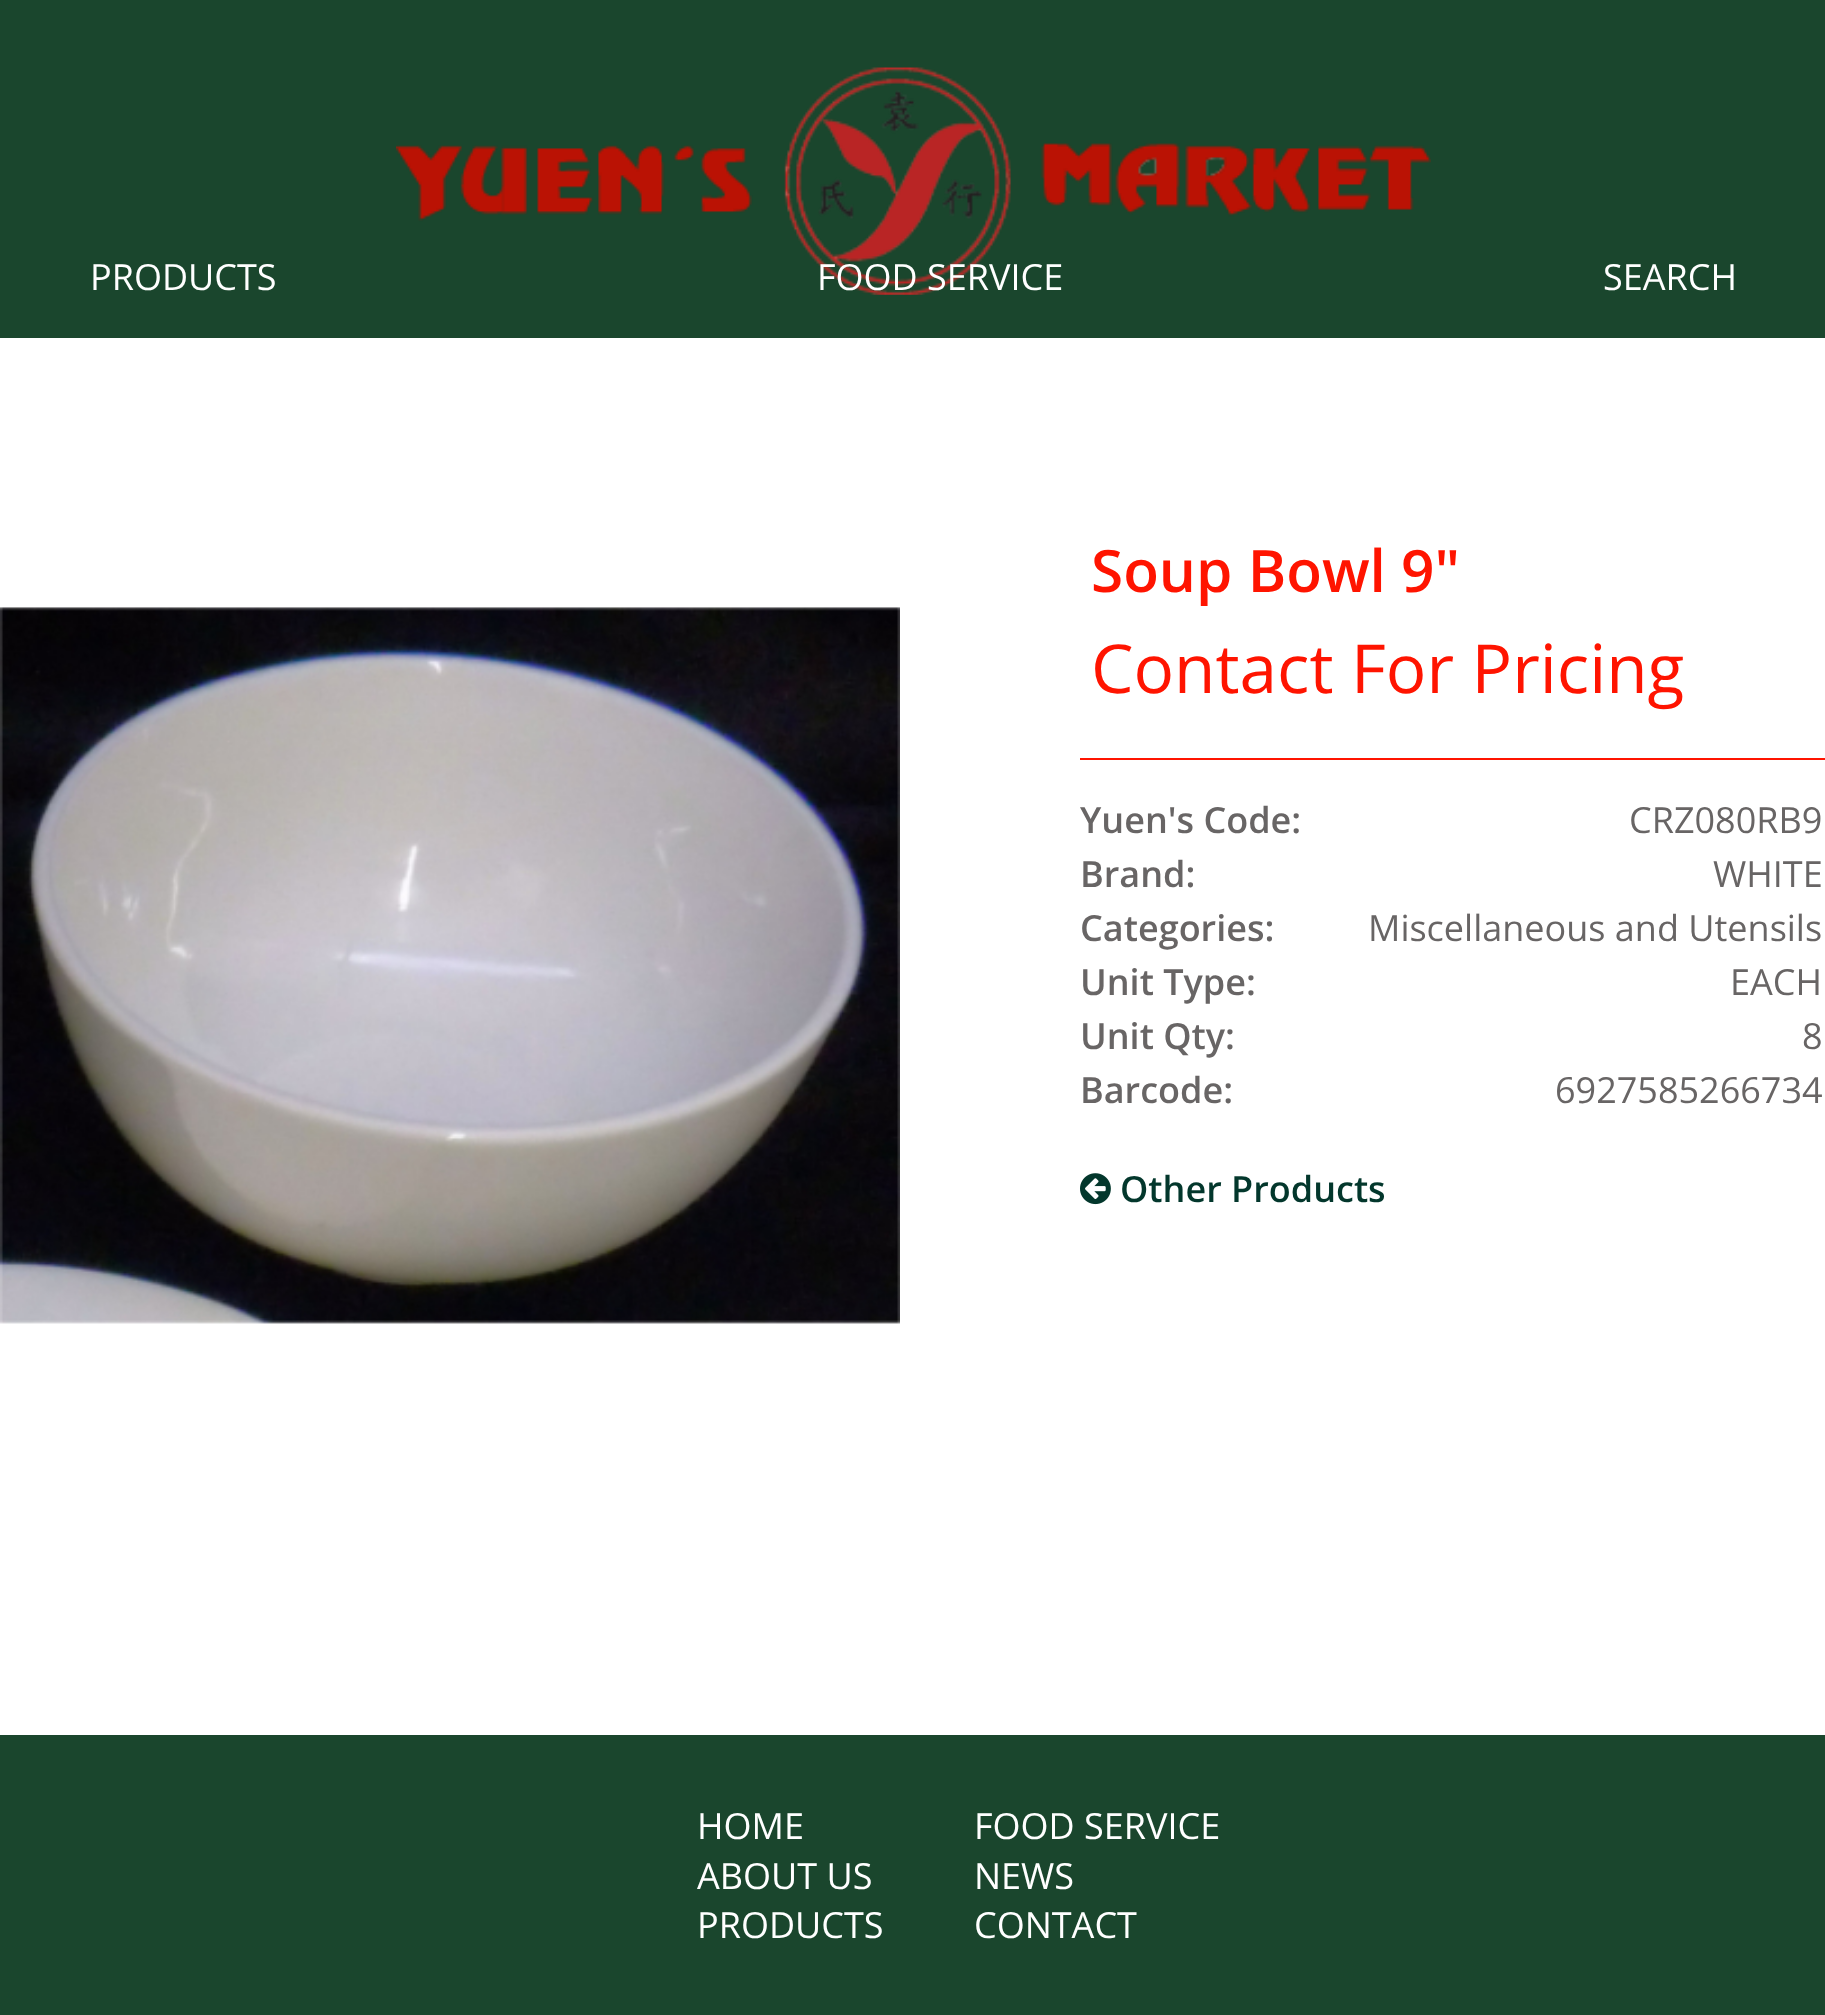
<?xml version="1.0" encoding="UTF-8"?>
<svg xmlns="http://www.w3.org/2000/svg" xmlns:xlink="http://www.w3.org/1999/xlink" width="1825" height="2015">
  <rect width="100%" height="100%" fill="#ffffff" />
  <rect width="1825" height="338" fill="#1a462d" />
  <image x="396" y="67" width="1035" height="228" xlink:href="image1.png" />
  <image x="0" y="607" width="900" height="717" xlink:href="image2.png" />
  <rect x="1080" y="758" width="745" height="2" fill="#ff1400" />
  <image x="1080" y="1173" width="31" height="32" xlink:href="image3.png" />
  <rect y="1735" width="1825" height="280" fill="#1a462d" />
  <text x="90" y="290" style="font-family: Open Sans; font-size: 36px; fill: #ffffff">PRODUCTS</text>
  <text x="817" y="290" style="font-family: Open Sans; font-size: 36px; fill: #ffffff">FOOD SERVICE</text>
  <text x="1603" y="290" style="font-family: Open Sans; font-size: 36px; fill: #ffffff">SEARCH</text>
  <text x="1091" y="592" style="font-family: Open Sans; font-size: 58.5px; font-weight: 600; fill: #ff1400">Soup Bowl 9"</text>
  <text x="1091" y="693" style="font-family: Open Sans; font-size: 67.5px; fill: #ff1400">Contact For Pricing</text>
  <text x="1080" y="833" style="font-family: Open Sans; font-size: 36px; font-weight: 600; fill: #686565">Yuen's Code:</text>
  <text x="1629" y="833" style="font-family: Open Sans; font-size: 36px; fill: #686565">CRZ080RB9</text>
  <text x="1080" y="887" style="font-family: Open Sans; font-size: 36px; font-weight: 600; fill: #686565">Brand:</text>
  <text x="1713" y="887" style="font-family: Open Sans; font-size: 36px; fill: #686565">WHITE</text>
  <text x="1080" y="941" style="font-family: Open Sans; font-size: 36px; font-weight: 600; fill: #686565">Categories:</text>
  <text x="1368" y="941" style="font-family: Open Sans; font-size: 36px; fill: #686565">Miscellaneous and Utensils</text>
  <text x="1080" y="995" style="font-family: Open Sans; font-size: 36px; font-weight: 600; fill: #686565">Unit Type:</text>
  <text x="1730" y="995" style="font-family: Open Sans; font-size: 36px; fill: #686565">EACH</text>
  <text x="1080" y="1049" style="font-family: Open Sans; font-size: 36px; font-weight: 600; fill: #686565">Unit Qty:</text>
  <text x="1802" y="1049" style="font-family: Open Sans; font-size: 36px; fill: #686565">8</text>
  <text x="1080" y="1103" style="font-family: Open Sans; font-size: 36px; font-weight: 600; fill: #686565">Barcode:</text>
  <text x="1555" y="1103" style="font-family: Open Sans; font-size: 36px; fill: #686565">6927585266734</text>
  <text x="1120" y="1202" style="font-family: Open Sans; font-size: 36px; font-weight: 600; fill: #03372c">Other Products</text>
  <text x="697" y="1839" style="font-family: Open Sans; font-size: 36px; fill: #ffffff">HOME</text>
  <text x="697" y="1889" style="font-family: Open Sans; font-size: 36px; fill: #ffffff">ABOUT US</text>
  <text x="697" y="1938" style="font-family: Open Sans; font-size: 36px; fill: #ffffff">PRODUCTS</text>
  <text x="974" y="1839" style="font-family: Open Sans; font-size: 36px; fill: #ffffff">FOOD SERVICE</text>
  <text x="974" y="1889" style="font-family: Open Sans; font-size: 36px; fill: #ffffff">NEWS</text>
  <text x="974" y="1938" style="font-family: Open Sans; font-size: 36px; fill: #ffffff">CONTACT</text>
</svg>
